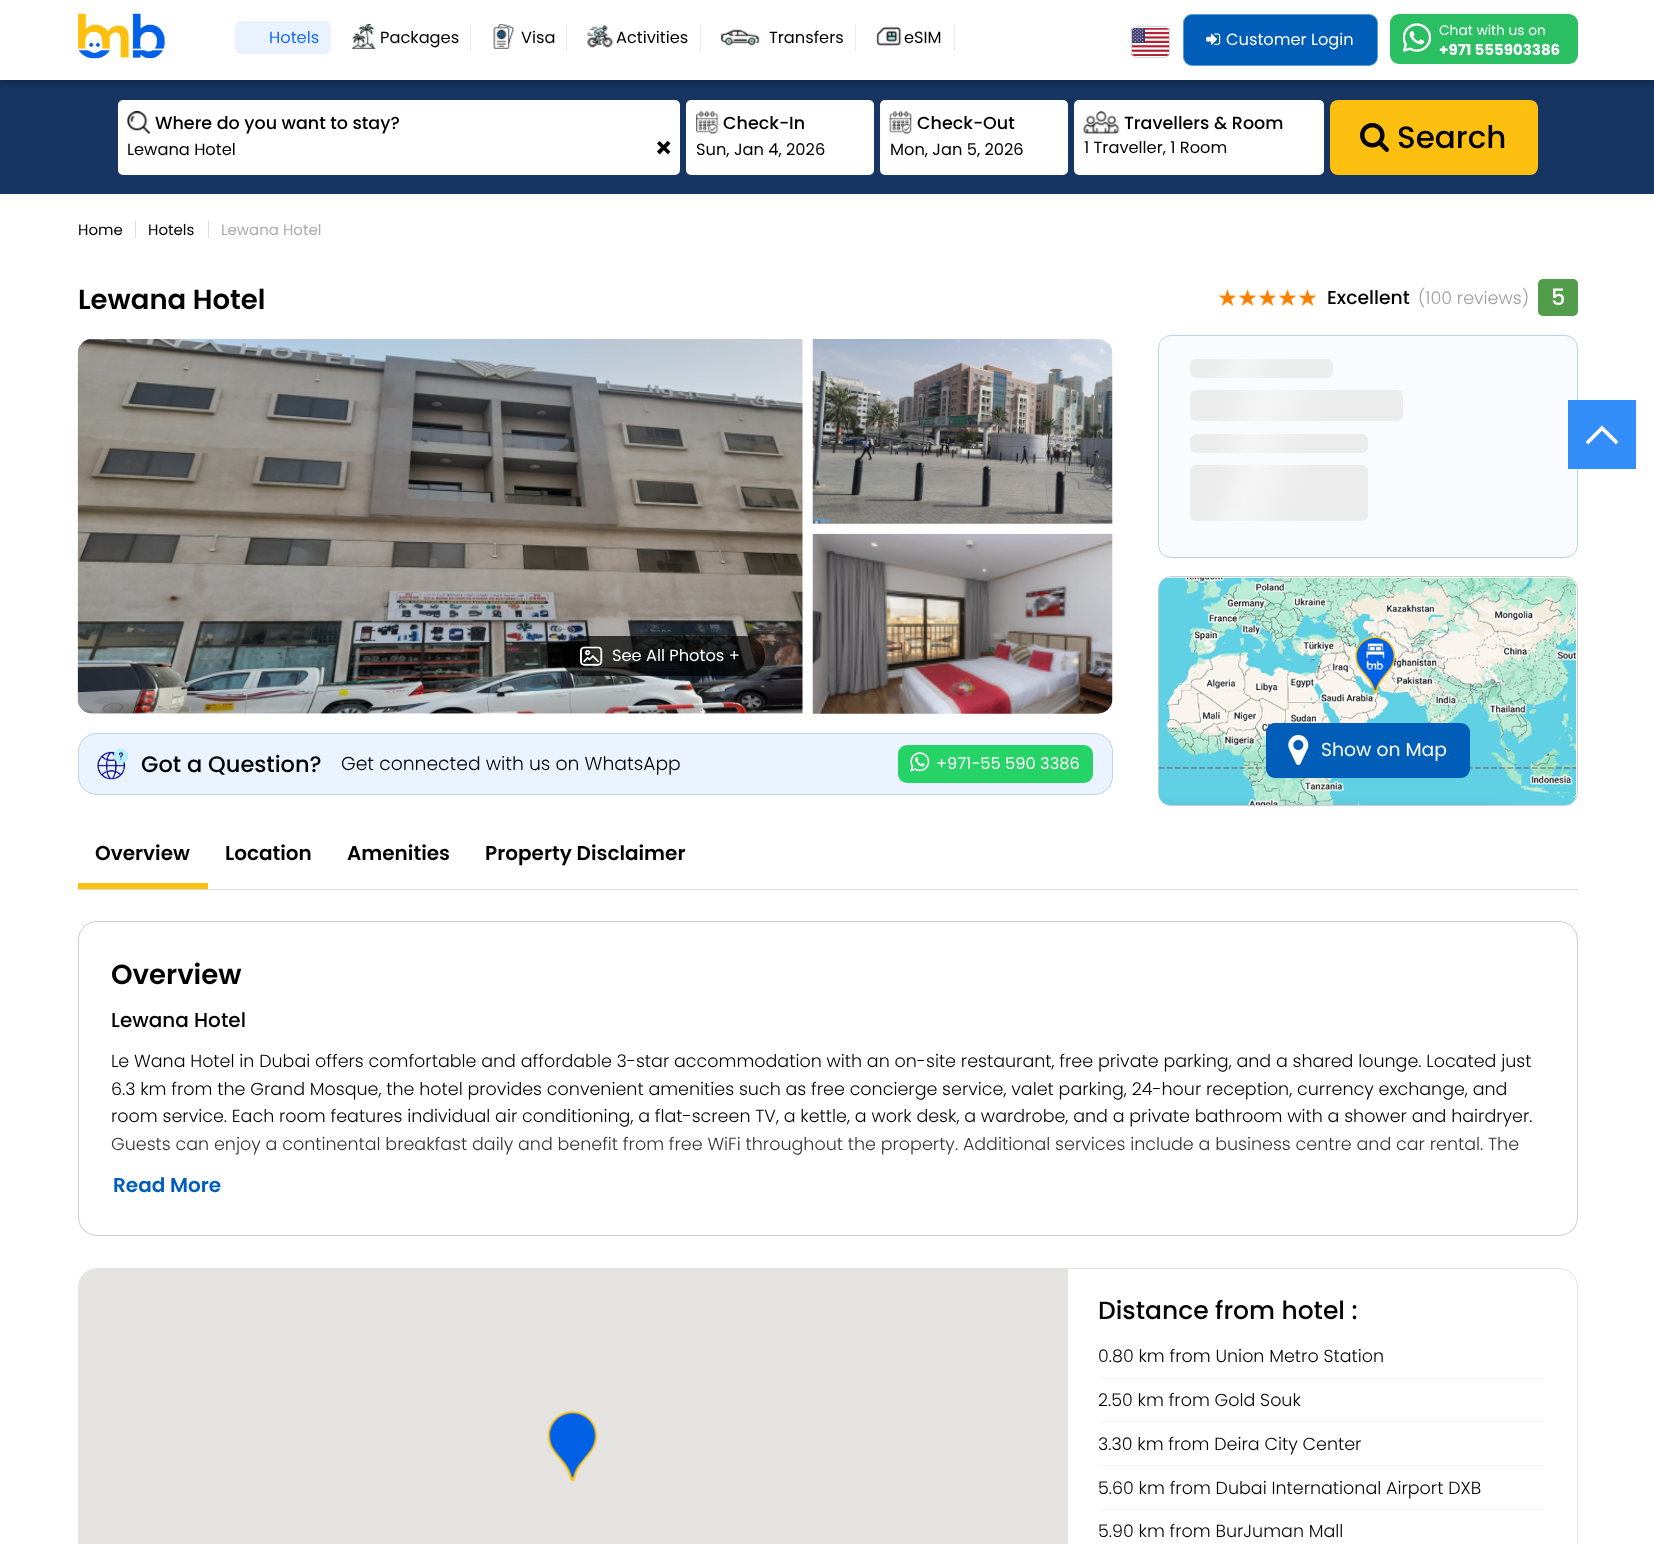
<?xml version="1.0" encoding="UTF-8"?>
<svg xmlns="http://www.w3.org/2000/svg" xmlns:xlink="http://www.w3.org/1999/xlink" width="1654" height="1544">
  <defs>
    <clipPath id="clip1"><rect x="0" y="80" width="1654" height="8" /></clipPath>
    <linearGradient id="g1" gradientUnits="userSpaceOnUse" x1="1204" y1="321" x2="1461" y2="415"><stop offset="0.08" stop-color="#ececec" /><stop offset="0.18" stop-color="#f5f5f5" /><stop offset="0.33" stop-color="#ececec" /></linearGradient>
    <linearGradient id="g2" gradientUnits="userSpaceOnUse" x1="1210" y1="336" x2="1595" y2="476"><stop offset="0.08" stop-color="#ececec" /><stop offset="0.18" stop-color="#f5f5f5" /><stop offset="0.33" stop-color="#ececec" /></linearGradient>
    <linearGradient id="g3" gradientUnits="userSpaceOnUse" x1="1208" y1="385" x2="1527" y2="501"><stop offset="0.08" stop-color="#ececec" /><stop offset="0.18" stop-color="#f5f5f5" /><stop offset="0.33" stop-color="#ececec" /></linearGradient>
    <linearGradient id="g4" gradientUnits="userSpaceOnUse" x1="1202" y1="433" x2="1533" y2="553"><stop offset="0.08" stop-color="#ececec" /><stop offset="0.18" stop-color="#f5f5f5" /><stop offset="0.33" stop-color="#ececec" /></linearGradient>
  </defs>
  <rect width="100%" height="100%" fill="#ffffff" />
  <rect y="80" width="1654" height="114" fill="#163562" />
  <g clip-path="url(#clip1)">
    <rect y="1" width="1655" height="80" fill="#000000" fill-opacity="0.4" filter="blur(4.5px)" />
  </g>
  <image x="78" y="13" width="87" height="46" xlink:href="image1.png" />
  <rect x="235" y="21" width="96" height="33" rx="6" fill="#eaf2ff" />
  <rect x="470" y="24" width="1" height="27" fill="#eaeaea" />
  <image x="352" y="24" width="24" height="25" xlink:href="image2.png" />
  <rect x="566" y="24" width="1" height="27" fill="#eaeaea" />
  <image x="493" y="24" width="22" height="25" xlink:href="image3.png" />
  <rect x="700" y="24" width="1" height="27" fill="#eaeaea" />
  <image x="587" y="24" width="27" height="24" xlink:href="image4.png" />
  <rect x="855" y="24" width="1" height="27" fill="#eaeaea" />
  <image x="721" y="29" width="39" height="17" xlink:href="image5.png" />
  <rect x="954" y="24" width="1" height="27" fill="#eaeaea" />
  <image x="876" y="26" width="26" height="20" xlink:href="image6.png" />
  <image x="1131" y="28" width="39" height="28" xlink:href="image7.png" />
  <rect x="1131.5" y="26.5" width="38" height="31" rx="5.5" fill="none" stroke="#d5d5d5" />
  <rect x="1183.5" y="14.5" width="194" height="51" rx="8.5" fill="#005eb8" stroke="#5b9cd4" />
  <image x="1206" y="33" width="15" height="12" xlink:href="image8.png" />
  <rect x="1390" y="14" width="188" height="50" rx="9" fill="#2abf62" />
  <image x="1403" y="23" width="28" height="29" xlink:href="image9.png" />
  <rect x="118" y="100" width="562" height="75" rx="5" fill="#ffffff" />
  <image x="127" y="111" width="24" height="23" xlink:href="image10.png" />
  <rect x="686" y="100" width="188" height="75" rx="5" fill="#ffffff" />
  <image x="696" y="111" width="23" height="23" xlink:href="image11.png" />
  <rect x="880" y="100" width="188" height="75" rx="5" fill="#ffffff" />
  <image x="889" y="111" width="23" height="23" xlink:href="image12.png" />
  <rect x="1074" y="100" width="250" height="75" rx="5" fill="#ffffff" />
  <image x="1083" y="111" width="37" height="23" xlink:href="image13.png" />
  <rect x="1330" y="100" width="208" height="75" rx="8" fill="#fec010" />
  <image x="1360" y="122" width="29" height="30" xlink:href="image14.png" />
  <rect x="135" y="221" width="1" height="17" fill="#dddddd" />
  <rect x="208" y="221" width="1" height="17" fill="#dddddd" />
  <image x="812" y="339" width="301" height="185" xlink:href="image15.png" />
  <image x="77" y="339" width="726" height="375" xlink:href="image16.png" />
  <rect x="561" y="636" width="204" height="40" rx="20" fill="#000000" fill-opacity="0.7" />
  <image x="580" y="646" width="23" height="20" xlink:href="image17.png" />
  <image x="812" y="533" width="301" height="181" xlink:href="image18.png" />
  <rect x="78" y="733" width="1035" height="62" rx="19" fill="#ebf3ff" />
  <image x="97" y="748" width="31" height="32" xlink:href="image19.png" />
  <rect x="78.5" y="733.5" width="1034" height="61" rx="18.5" fill="none" stroke="#bcd6e2" />
  <rect x="898" y="745" width="195" height="38" rx="9" fill="#25d366" />
  <image x="910" y="752" width="20" height="20" xlink:href="image20.png" />
  <image x="1218" y="288" width="19" height="19" xlink:href="image21.png" />
  <image x="1238" y="288" width="19" height="19" xlink:href="image21.png" />
  <image x="1258" y="288" width="19" height="19" xlink:href="image21.png" />
  <image x="1278" y="288" width="19" height="19" xlink:href="image21.png" />
  <image x="1298" y="288" width="19" height="19" xlink:href="image21.png" />
  <rect x="1538" y="279" width="40" height="37" rx="5" fill="#529d4b" />
  <rect x="1158.5" y="335.5" width="419" height="222" rx="12.5" fill="#f9fbfe" stroke="#bbd3ea" />
  <rect x="1190" y="359" width="143" height="19" rx="6" fill="url(#g1)" />
  <rect x="1190" y="390" width="213" height="31" rx="6" fill="url(#g2)" />
  <rect x="1190" y="434" width="178" height="19" rx="6" fill="url(#g3)" />
  <rect x="1190" y="465" width="178" height="56" rx="6" fill="url(#g4)" />
  <rect x="1158.5" y="576.5" width="419" height="229" rx="12.5" fill="none" stroke="#cdcdcd" />
  <image x="1158" y="577" width="419" height="228" xlink:href="image22.png" />
  <rect x="1266" y="723" width="204" height="55" rx="9" fill="#005eb8" />
  <image x="1288" y="735" width="21" height="30" xlink:href="image23.png" />
  <rect x="78" y="889" width="1500" height="1" fill="#dddddd" />
  <rect x="78" y="883" width="130" height="6" fill="#fec010" />
  <rect x="78.5" y="921.5" width="1499" height="314" rx="18.5" fill="none" stroke="#cdcdcd" />
  <rect x="78.5" y="1268.5" width="1499" height="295" rx="18.5" fill="none" stroke="#e0e2e4" />
  <path d="M 97 1269 h 971 v 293 h -971 c -10 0 -18 -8 -18 -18 v -257 c 0 -10 8 -18 18 -18 z" fill="#e5e3df" />
  <image x="547" y="1411" width="51" height="71" xlink:href="image24.png" />
  <rect x="1099" y="1378" width="446" height="1" fill="#f4f6f9" />
  <rect x="1099" y="1421" width="446" height="1" fill="#f4f6f9" />
  <rect x="1099" y="1465" width="446" height="1" fill="#f4f6f9" />
  <rect x="1099" y="1509" width="446" height="1" fill="#f4f6f9" />
  <rect x="1568" y="400" width="68" height="69" fill="#338ef9" />
  <image x="1585" y="425" width="34" height="20" xlink:href="image25.png" />
  <text x="269" y="43" style="font-family: Poppins; font-size: 16.25px; fill: #176df5">Hotels</text>
  <text x="380" y="43" style="font-family: Poppins; font-size: 16.25px; fill: #000000">Packages</text>
  <text x="521" y="43" style="font-family: Poppins; font-size: 16.25px; fill: #000000">Visa</text>
  <text x="616" y="43" style="font-family: Poppins; font-size: 16.25px; fill: #000000">Activities</text>
  <text x="769" y="43" style="font-family: Poppins; font-size: 16.25px; fill: #000000">Transfers</text>
  <text x="904" y="43" style="font-family: Poppins; font-size: 16.25px; fill: #000000">eSIM</text>
  <text x="1226" y="45" style="font-family: Poppins; font-size: 16.25px; fill: #ffffff">Customer Login</text>
  <text x="1439" y="35" style="font-family: Poppins; font-size: 13.75px; fill: #ffffff">Chat with us on</text>
  <text x="1439" y="55" style="font-family: Poppins; font-size: 15px; font-weight: bold; fill: #ffffff">+971 555903386</text>
  <text x="155" y="129" style="font-family: Poppins; font-size: 17.5px; font-weight: 500; fill: #000000">Where do you want to stay?</text>
  <text x="127" y="155" style="font-family: Poppins; font-size: 16.25px; fill: #000000">Lewana Hotel</text>
  <text x="649" y="148" transform="rotate(45 649 148)" style="font-family: Poppins; font-size: 30px; font-weight: 600; fill: #000000">+</text>
  <text x="723" y="129" style="font-family: Poppins; font-size: 17.5px; font-weight: 500; fill: #000000">Check-In</text>
  <text x="696" y="155" style="font-family: Poppins; font-size: 16.25px; fill: #000000">Sun, Jan 4, 2026</text>
  <text x="917" y="129" style="font-family: Poppins; font-size: 17.5px; font-weight: 500; fill: #000000">Check-Out</text>
  <text x="890" y="155" style="font-family: Poppins; font-size: 16.25px; fill: #000000">Mon, Jan 5, 2026</text>
  <text x="1124" y="129" style="font-family: Poppins; font-size: 17.5px; font-weight: 500; fill: #000000">Travellers &amp; Room</text>
  <text x="1084" y="153" style="font-family: Poppins; font-size: 16.25px; fill: #000000">1 Traveller, 1 Room</text>
  <text x="1397" y="148" style="font-family: Poppins; font-size: 31px; font-weight: 500; fill: #000000">Search</text>
  <text x="78" y="235" style="font-family: Poppins; font-size: 15px; fill: #000000">Home</text>
  <text x="148" y="235" style="font-family: Poppins; font-size: 15px; fill: #000000">Hotels</text>
  <text x="221" y="235" style="font-family: Poppins; font-size: 15px; fill: #ababab">Lewana Hotel</text>
  <text x="78" y="309" style="font-family: Poppins; font-size: 27.5px; font-weight: 600; fill: #000000">Lewana Hotel</text>
  <text x="612" y="661" style="font-family: Poppins; font-size: 16.25px; fill: #ffffff">See All Photos +</text>
  <text x="141" y="772" style="font-family: Poppins; font-size: 22.5px; font-weight: 500; fill: #000000">Got a Question?</text>
  <text x="341" y="770" style="font-family: Poppins; font-size: 18.75px; font-weight: 300; fill: #000000">Get connected with us on WhatsApp</text>
  <text x="936" y="769" style="font-family: Poppins; font-size: 16.25px; fill: #ffffff">+971-55 590 3386</text>
  <text x="1327" y="304" style="font-family: Poppins; font-size: 18.75px; font-weight: 500; fill: #000000">Excellent</text>
  <text x="1418" y="304" style="font-family: Poppins; font-size: 17.5px; font-weight: 300; fill: #9d9d9d">(100 reviews)</text>
  <text x="1551" y="305" style="font-family: Poppins; font-size: 22.5px; font-weight: 500; fill: #ffffff">5</text>
  <text x="1321" y="756" style="font-family: Poppins; font-size: 18.75px; fill: #ffffff">Show on Map</text>
  <text x="95" y="860" style="font-family: Poppins; font-size: 20px; font-weight: 600; fill: #000000">Overview</text>
  <text x="225" y="860" style="font-family: Poppins; font-size: 20px; font-weight: 600; fill: #000000">Location</text>
  <text x="347" y="860" style="font-family: Poppins; font-size: 20px; font-weight: 600; fill: #000000">Amenities</text>
  <text x="485" y="860" style="font-family: Poppins; font-size: 20px; font-weight: 600; fill: #000000">Property Disclaimer</text>
  <text x="111" y="984" style="font-family: Poppins; font-size: 27.5px; font-weight: 600; fill: #000000">Overview</text>
  <text x="111" y="1027" style="font-family: Poppins; font-size: 20px; font-weight: 500; fill: #000000">Lewana Hotel</text>
  <text x="111" y="1067" style="font-family: Poppins; font-size: 17.5px; font-weight: 300; fill: #000000">Le Wana Hotel in Dubai offers comfortable and affordable 3-star accommodation with an on-site restaurant, free private parking, and a shared lounge. Located just</text>
  <text x="111" y="1095" style="font-family: Poppins; font-size: 17.5px; font-weight: 300; fill: #000000">6.3 km from the Grand Mosque, the hotel provides convenient amenities such as free concierge service, valet parking, 24-hour reception, currency exchange, and</text>
  <text x="111" y="1122" style="font-family: Poppins; font-size: 17.5px; font-weight: 300; fill: #000000">room service. Each room features individual air conditioning, a flat-screen TV, a kettle, a work desk, a wardrobe, and a private bathroom with a shower and hairdryer.</text>
  <text x="111" y="1150" style="font-family: Poppins; font-size: 17.5px; font-weight: 300; fill: #333333">Guests can enjoy a continental breakfast daily and benefit from free WiFi throughout the property. Additional services include a business centre and car rental. The</text>
  <text x="113" y="1192" style="font-family: Poppins; font-size: 20px; font-weight: 600; fill: #005eb8">Read More</text>
  <text x="1098" y="1319" style="font-family: Poppins; font-size: 25px; font-weight: 500; fill: #000000">Distance from hotel :</text>
  <text x="1098" y="1362" style="font-family: Poppins; font-size: 17.5px; font-weight: 300; fill: #000000">0.80 km from Union Metro Station</text>
  <text x="1098" y="1406" style="font-family: Poppins; font-size: 17.5px; font-weight: 300; fill: #000000">2.50 km from Gold Souk</text>
  <text x="1098" y="1450" style="font-family: Poppins; font-size: 17.5px; font-weight: 300; fill: #000000">3.30 km from Deira City Center</text>
  <text x="1098" y="1494" style="font-family: Poppins; font-size: 17.5px; font-weight: 300; fill: #000000">5.60 km from Dubai International Airport DXB</text>
  <text x="1098" y="1537" style="font-family: Poppins; font-size: 17.5px; font-weight: 300; fill: #000000">5.90 km from BurJuman Mall</text>
</svg>
